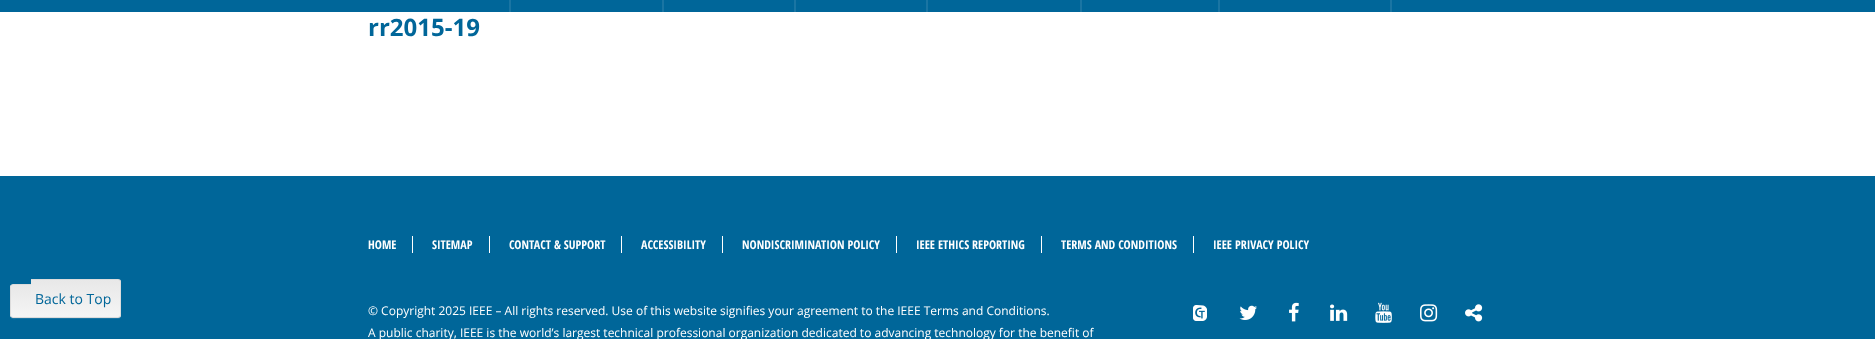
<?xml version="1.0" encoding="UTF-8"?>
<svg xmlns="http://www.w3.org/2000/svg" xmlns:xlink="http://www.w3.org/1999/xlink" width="1875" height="339">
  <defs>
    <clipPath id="clip1"><path d="M 13 284 h 18 v 34 h -18 c -1.5 0 -3 -1.5 -3 -3 v -28 c 0 -1.5 1.5 -3 3 -3 z" /></clipPath>
    <linearGradient id="g1" gradientUnits="userSpaceOnUse" x1="21" y1="285" x2="21" y2="317"><stop offset="0" stop-color="#e8e8e8" /><stop offset="1" stop-color="#f5f5f5" /></linearGradient>
    <clipPath id="clip2"><path d="M 31 279 h 87 c 1.5 0 3 1.5 3 3 v 33 c 0 1.5 -1.5 3 -3 3 h -87 z" /></clipPath>
    <linearGradient id="g2" gradientUnits="userSpaceOnUse" x1="76" y1="280" x2="76" y2="317"><stop offset="0" stop-color="#e8e8e8" /><stop offset="1" stop-color="#f5f5f5" /></linearGradient>
  </defs>
  <rect width="100%" height="100%" fill="#ffffff" />
  <rect width="1875" height="12" fill="#006699" />
  <rect x="509" width="2" height="12" fill="#1a75a3" />
  <rect x="662" width="2" height="12" fill="#1a75a3" />
  <rect x="794" width="2" height="12" fill="#1a75a3" />
  <rect x="926" width="2" height="12" fill="#1a75a3" />
  <rect x="1080" width="2" height="12" fill="#1a75a3" />
  <rect x="1218" width="2" height="12" fill="#1a75a3" />
  <rect x="1390" width="2" height="12" fill="#1a75a3" />
  <rect y="176" width="1875" height="163" fill="#006699" />
  <path d="M 10 315 c 0 5.5 5 4 9 4 h 12 v -1 h -18 c -1.5 0 -3 -1.5 -3 -3 z" fill="#1a75a3" />
  <g clip-path="url(#clip1)">
    <rect x="10" y="285" width="21" height="32" fill="url(#g1)" />
  </g>
  <path d="M 13 284 h 18 v 34 h -18 c -1.5 0 -3 -1.5 -3 -3 v -28 c 0 -1.5 1.5 -3 3 -3 z m 0 1 h 18 v 32 h -18 c -1 0 -2 -1 -2 -2 v -28 c 0 -1 1 -2 2 -2 z" fill="#dcdcdc" fill-rule="evenodd" />
  <path d="M 31 318 v 1 h 87 c 2 0 3 -1 3 -3 v -1 c 0 2 -1 3 -3 3 z" fill="#1a75a3" />
  <g clip-path="url(#clip2)">
    <rect x="31" y="280" width="90" height="37" fill="url(#g2)" />
  </g>
  <path d="M 31 279 h 87 c 2 0 3 1 3 3 v 33 c 0 2 -1 3 -3 3 h -87 z m 0 1 h 87 c 1 0 2 1 2 2 v 33 c 0 1 -1 2 -2 2 h -87 z" fill="#dcdcdc" fill-rule="evenodd" />
  <rect x="412" y="236" width="1" height="17" fill="#ffffff" />
  <rect x="489" y="236" width="1" height="17" fill="#ffffff" />
  <rect x="621" y="236" width="1" height="17" fill="#ffffff" />
  <rect x="722" y="236" width="1" height="17" fill="#ffffff" />
  <rect x="896" y="236" width="1" height="17" fill="#ffffff" />
  <rect x="1041" y="236" width="1" height="17" fill="#ffffff" />
  <rect x="1193" y="236" width="1" height="17" fill="#ffffff" />
  <image x="1193" y="305" width="14" height="16" xlink:href="image1.png" />
  <image x="1239" y="305" width="18" height="15" xlink:href="image2.png" />
  <image x="1289" y="302" width="10" height="20" xlink:href="image3.png" />
  <image x="1330" y="304" width="18" height="17" xlink:href="image4.png" />
  <image x="1375" y="302" width="17" height="21" xlink:href="image5.png" />
  <image x="1420" y="304" width="18" height="18" xlink:href="image6.png" />
  <image x="1465" y="304" width="18" height="18" xlink:href="image7.png" />
  <text x="368" y="36" style="font-family: Open Sans; font-size: 24px; font-weight: bold; fill: #006699">rr2015-19</text>
  <text x="35" y="304" style="font-family: Open Sans; font-size: 14px; fill: #006699">Back to Top</text>
  <text x="368" y="249" style="font-family: Open Sans Condensed; font-size: 12px; font-weight: bold; fill: #ffffff">HOME</text>
  <text x="432" y="249" style="font-family: Open Sans Condensed; font-size: 12px; font-weight: bold; fill: #ffffff">SITEMAP</text>
  <text x="509" y="249" style="font-family: Open Sans Condensed; font-size: 12px; font-weight: bold; fill: #ffffff">CONTACT &amp; SUPPORT</text>
  <text x="641" y="249" style="font-family: Open Sans Condensed; font-size: 12px; font-weight: bold; fill: #ffffff">ACCESSIBILITY</text>
  <text x="742" y="249" style="font-family: Open Sans Condensed; font-size: 12px; font-weight: bold; fill: #ffffff">NONDISCRIMINATION POLICY</text>
  <text x="916" y="249" style="font-family: Open Sans Condensed; font-size: 12px; font-weight: bold; fill: #ffffff">IEEE ETHICS REPORTING</text>
  <text x="1061" y="249" style="font-family: Open Sans Condensed; font-size: 12px; font-weight: bold; fill: #ffffff">TERMS AND CONDITIONS</text>
  <text x="1213" y="249" style="font-family: Open Sans Condensed; font-size: 12px; font-weight: bold; fill: #ffffff">IEEE PRIVACY POLICY</text>
  <text x="368" y="315" style="font-family: Open Sans; font-size: 12px; fill: #ffffff">© Copyright 2025 IEEE – All rights reserved. Use of this website signifies your agreement to the IEEE Terms and Conditions.</text>
  <text x="368" y="337" style="font-family: Open Sans; font-size: 12px; fill: #ffffff">A public charity, IEEE is the world’s largest technical professional organization dedicated to advancing technology for the benefit of</text>
</svg>
